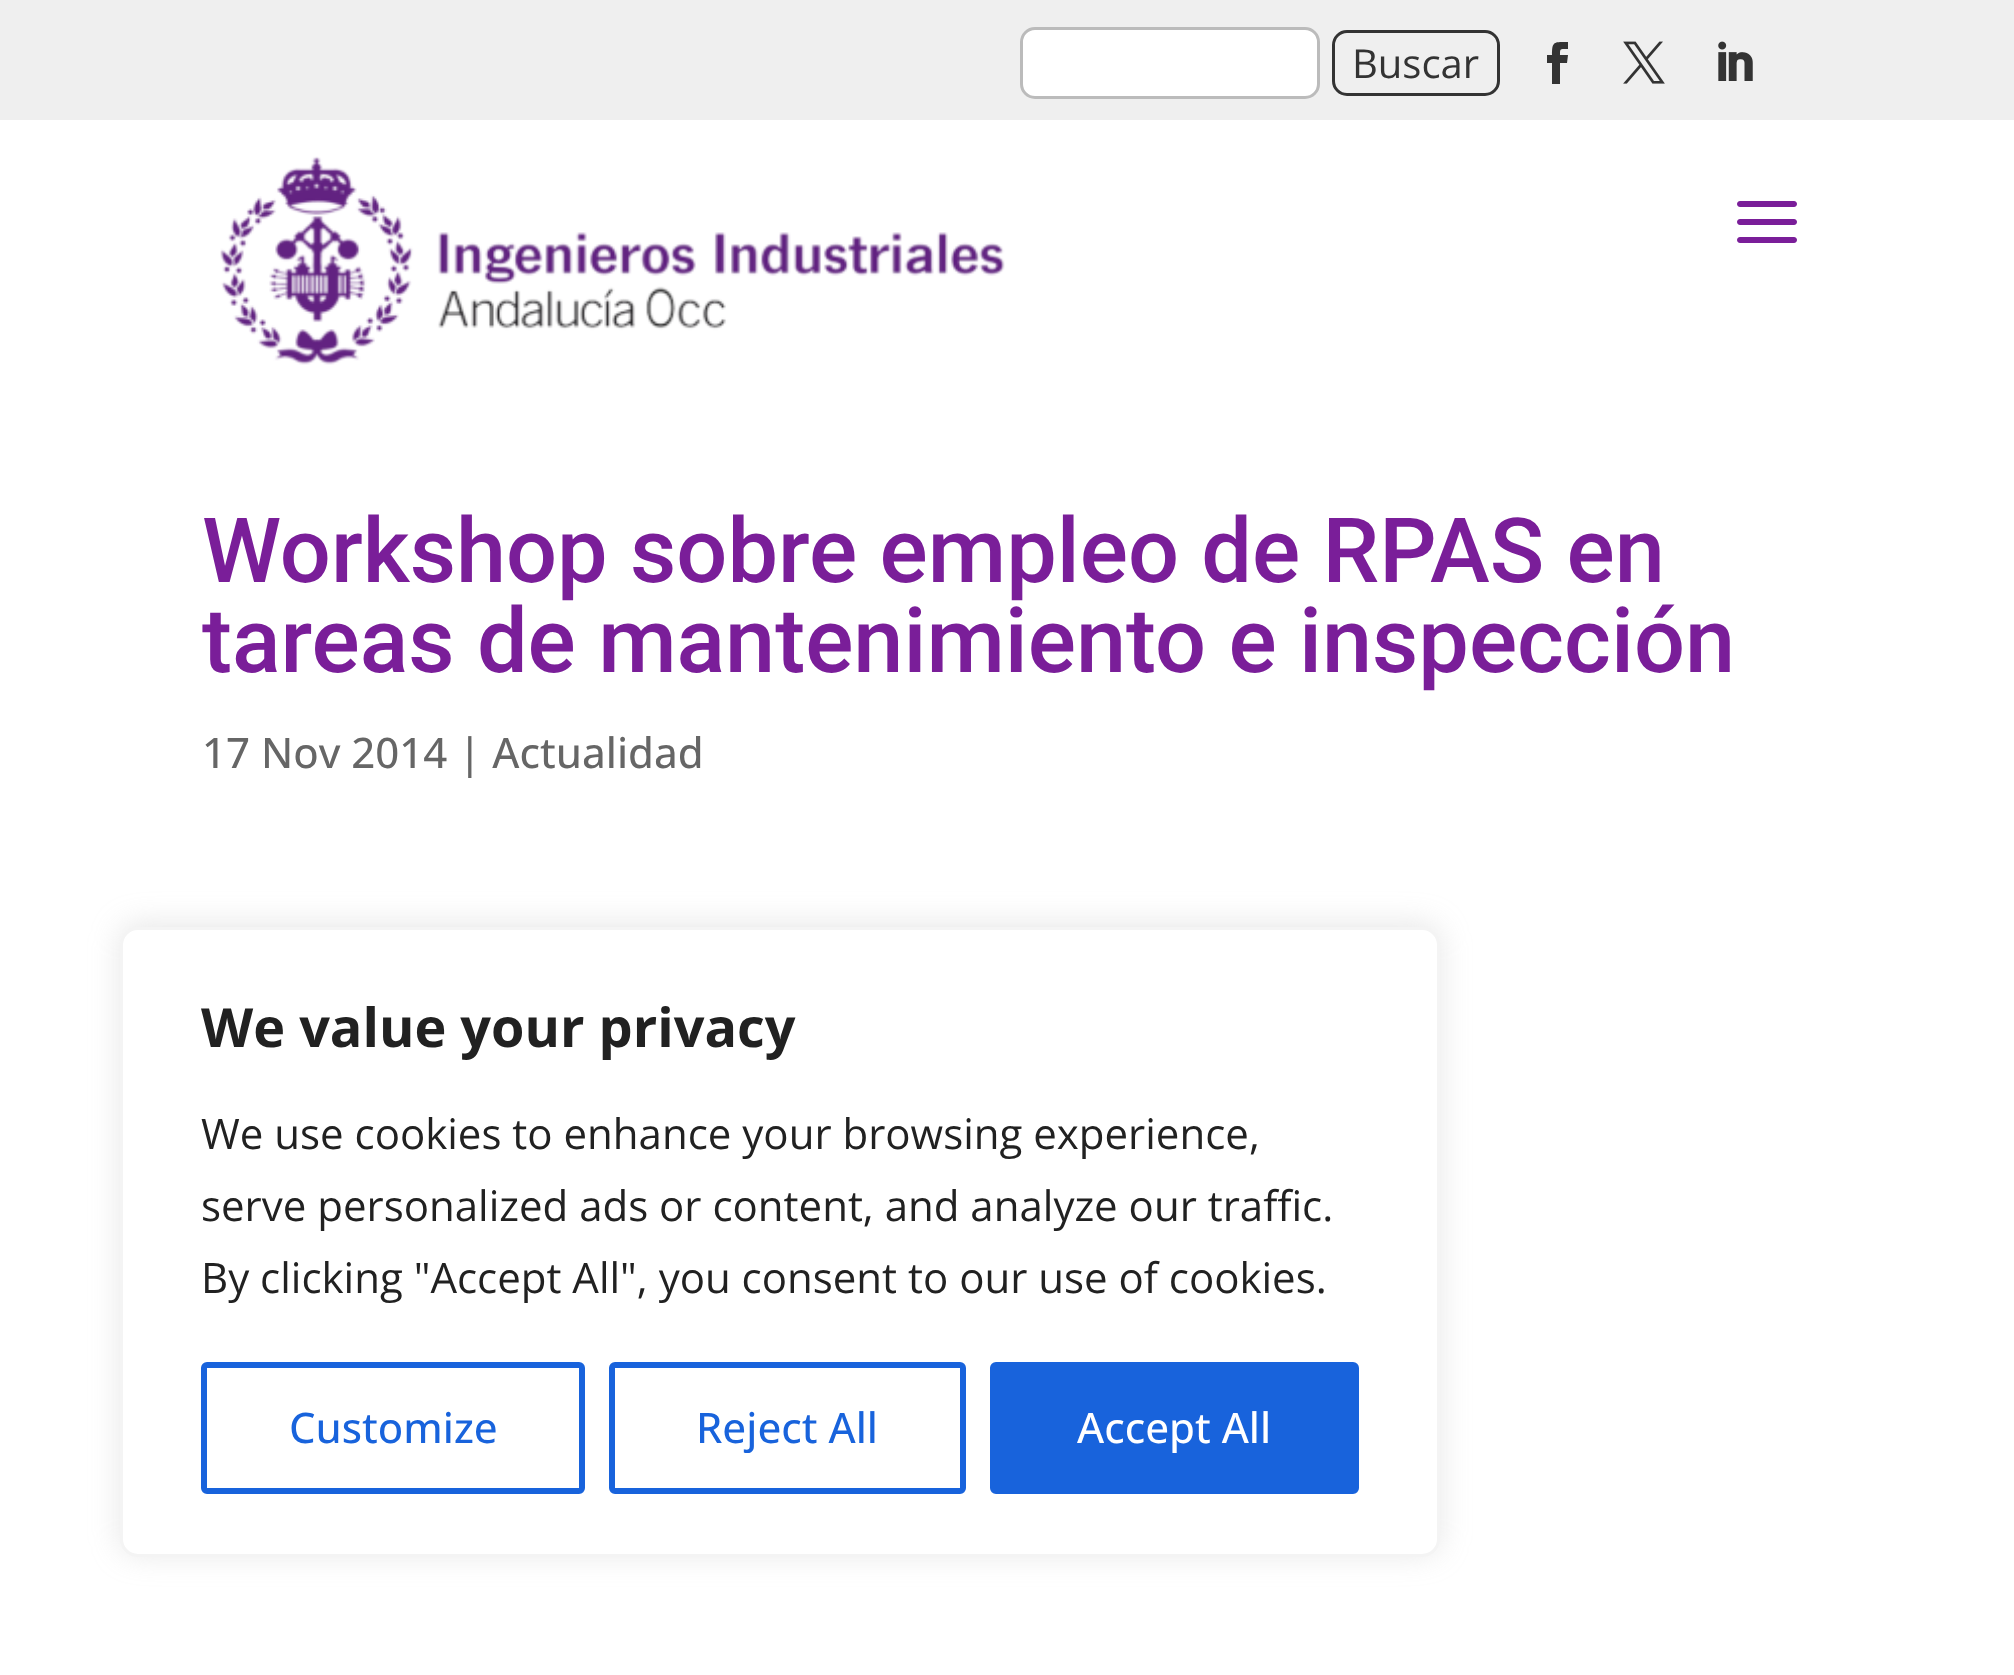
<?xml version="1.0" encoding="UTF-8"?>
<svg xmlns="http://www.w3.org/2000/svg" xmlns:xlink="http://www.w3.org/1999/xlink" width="2014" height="1675">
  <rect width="100%" height="100%" fill="#ffffff" />
  <rect width="2014" height="120" fill="#efefef" />
  <rect x="1021.5" y="28.5" width="297" height="69" rx="13.5" fill="#ffffff" stroke="#bbbbbb" stroke-width="3" />
  <rect x="1333.5" y="31.5" width="165" height="63" rx="13.5" fill="none" stroke="#333333" stroke-width="3" />
  <path d="M 1552 84 h 8 v -21 h 7 l 1 -8 h -8 c 0 -7 0 -6 8 -6 v -7 c -14 0 -16 -1 -16 13 h -5 v 8 h 5 z" fill="#333333" />
  <image x="1623" y="41" width="42" height="43" xlink:href="image1.png" />
  <image x="1718" y="41" width="35" height="40" xlink:href="image2.png" />
  <image x="220" y="156" width="785" height="209" xlink:href="image3.png" />
  <image x="1737" y="201" width="60" height="42" xlink:href="image4.png" />
  <rect x="120" y="924" width="1320" height="630" rx="18" fill="#acabab" fill-opacity="0.3" filter="blur(15px)" />
  <rect x="121.5" y="928.5" width="1317" height="627" rx="16.5" fill="#ffffff" stroke="#f4f4f4" stroke-width="3" />
  <rect x="204" y="1365" width="378" height="126" rx="3" fill="none" stroke="#1863dc" stroke-width="6" />
  <rect x="612" y="1365" width="351" height="126" rx="3" fill="none" stroke="#1863dc" stroke-width="6" />
  <rect x="993" y="1365" width="363" height="126" rx="3" fill="#1863dc" stroke="#1863dc" stroke-width="6" />
  <text x="1352" y="78" style="font-family: Open Sans; font-size: 40px; fill: #333333">Buscar</text>
  <text x="202" y="582" style="font-family: Roboto; font-size: 90px; font-weight: 500; fill: #7a1e99">Workshop sobre empleo de RPAS en</text>
  <text x="202" y="672" style="font-family: Roboto; font-size: 90px; font-weight: 500; fill: #7a1e99">tareas de mantenimiento e inspección</text>
  <text x="202" y="768" style="font-family: Open Sans; font-size: 42px; font-weight: 500; fill: #666666">17 Nov 2014 | Actualidad</text>
  <text x="201" y="1047" style="font-family: Open Sans; font-size: 54px; font-weight: bold; fill: #212121">We value your privacy</text>
  <text x="201" y="1149" style="font-family: Open Sans; font-size: 42px; fill: #212121">We use cookies to enhance your browsing experience,</text>
  <text x="201" y="1221" style="font-family: Open Sans; font-size: 42px; fill: #212121">serve personalized ads or content, and analyze our traffic.</text>
  <text x="201" y="1293" style="font-family: Open Sans; font-size: 42px; fill: #212121">By clicking "Accept All", you consent to our use of cookies.</text>
  <text x="289" y="1443" style="font-family: Open Sans; font-size: 42px; font-weight: 500; fill: #1863dc">Customize</text>
  <text x="696" y="1443" style="font-family: Open Sans; font-size: 42px; font-weight: 500; fill: #1863dc">Reject All</text>
  <text x="1077" y="1443" style="font-family: Open Sans; font-size: 42px; font-weight: 500; fill: #ffffff">Accept All</text>
</svg>
